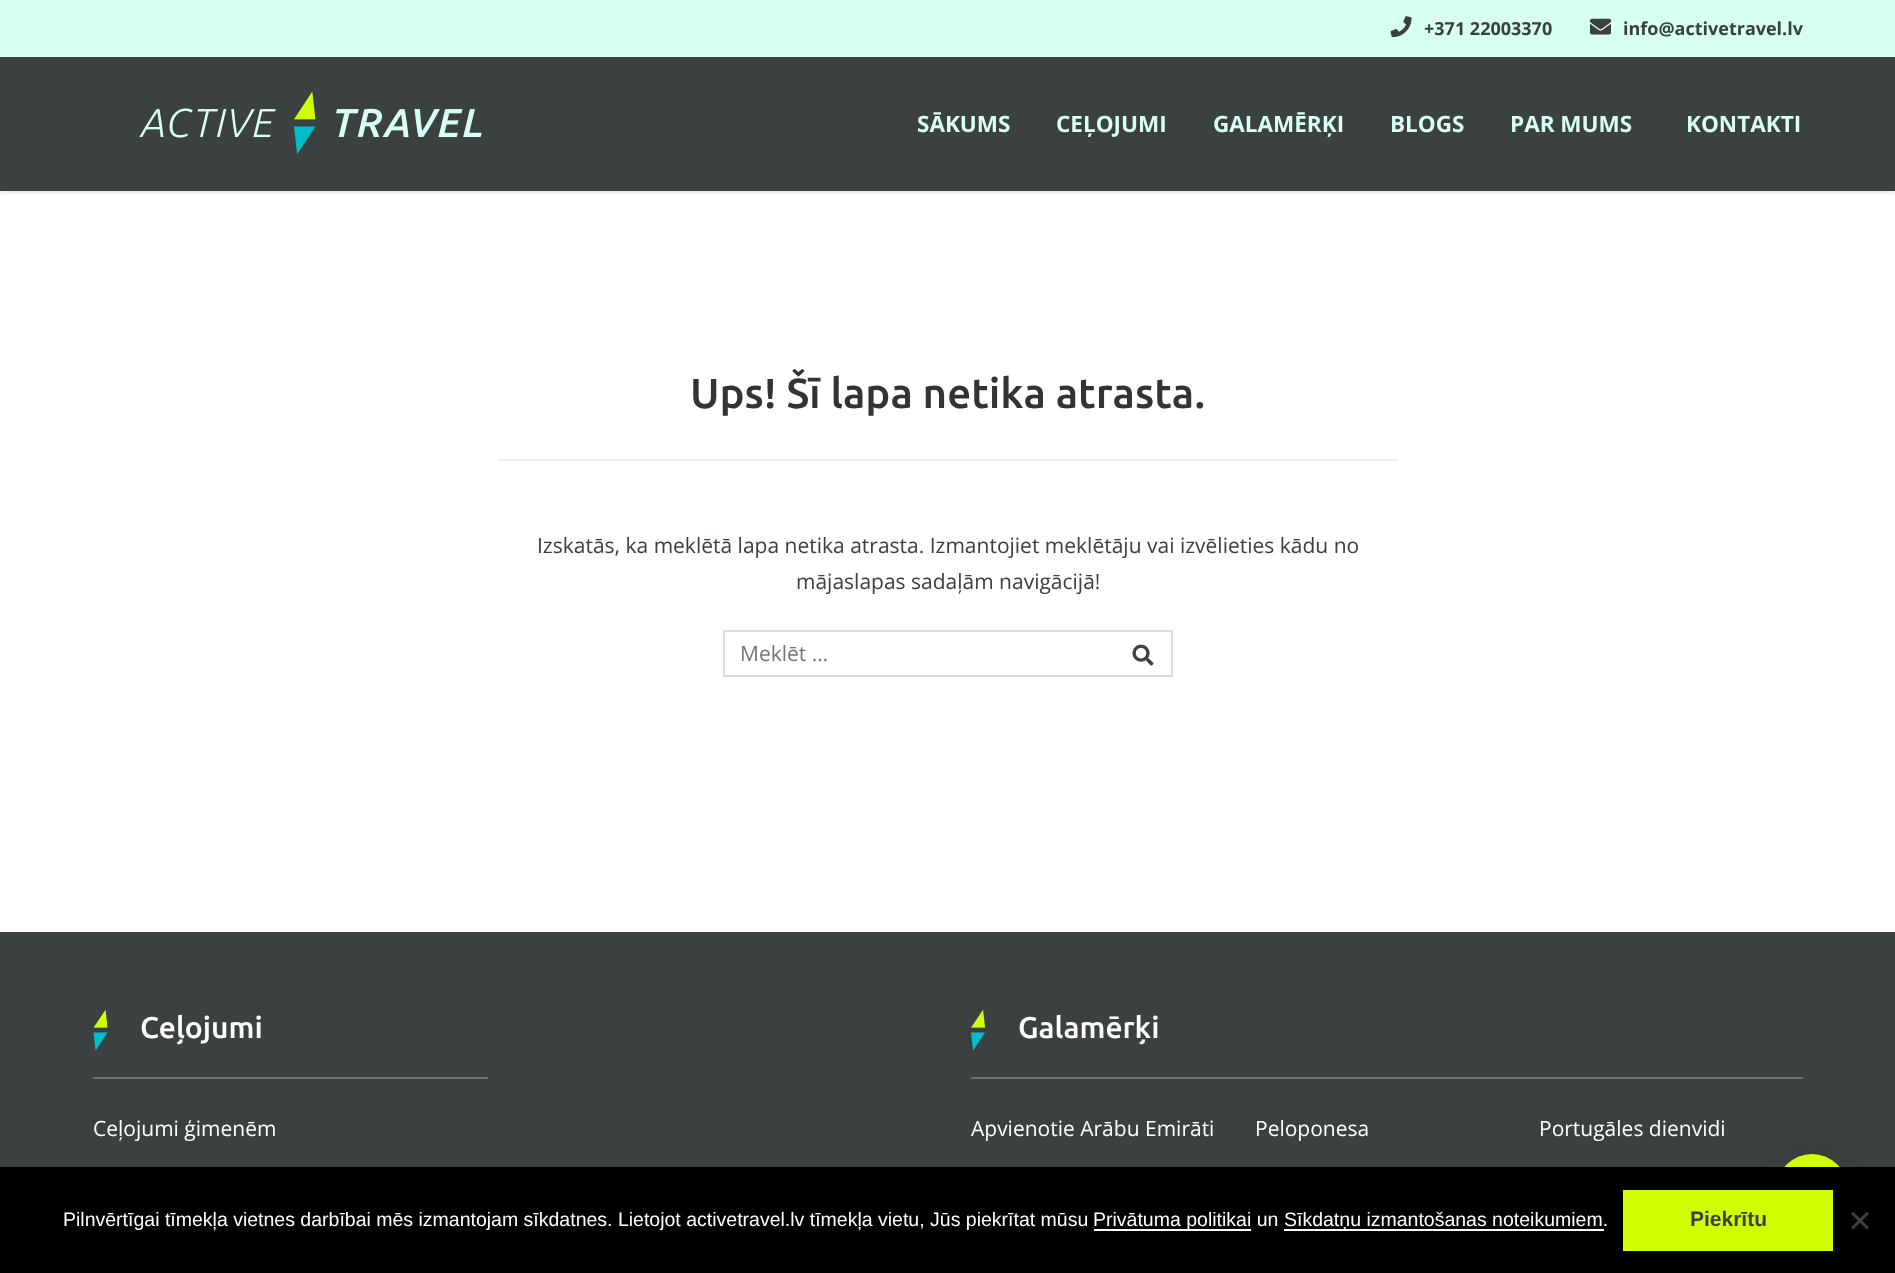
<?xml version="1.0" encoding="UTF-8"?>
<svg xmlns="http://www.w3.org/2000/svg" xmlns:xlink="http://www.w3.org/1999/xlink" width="1895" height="1273">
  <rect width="100%" height="100%" fill="#ffffff" />
  <rect y="2" width="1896" height="190" fill="#000000" fill-opacity="0.15" filter="blur(2px)" />
  <rect width="1895" height="57" fill="#d7fff2" />
  <image x="1390" y="16" width="22" height="22" xlink:href="image1.png" />
  <image x="1590" y="18" width="21" height="17" xlink:href="image2.png" />
  <rect y="57" width="1895" height="134" fill="#3b4040" />
  <image x="139" y="92" width="343" height="63" xlink:href="image3.png" />
  <rect x="498" y="459" width="900" height="2" fill="#eeeeee" />
  <rect x="724" y="631" width="448" height="45" fill="none" stroke="#dddddd" stroke-width="2" />
  <image x="1132" y="644" width="22" height="22" xlink:href="image4.png" />
  <rect y="932" width="1895" height="235" fill="#3b4040" />
  <rect x="93" y="1077" width="395" height="2" fill="#6f7272" />
  <image x="93" y="1010" width="15" height="41" xlink:href="image5.png" />
  <rect x="971" y="1077" width="832" height="2" fill="#6f7272" />
  <image x="971" y="1010" width="14" height="41" xlink:href="image6.png" />
  <rect x="1776" y="1155" width="72" height="72" rx="36" fill="#000000" fill-opacity="0.1" filter="blur(11px)" />
  <circle cx="1812" cy="1190" r="36" fill="#cfff00" />
  <rect y="1167" width="1895" height="106" fill="#000000" />
  <rect x="1094" y="1229" width="157" height="2" fill="#ffffff" />
  <rect x="1284" y="1229" width="320" height="2" fill="#ffffff" />
  <rect x="1623" y="1190" width="210" height="61" fill="#cfff00" />
  <path d="M 1867 1211.5 l 2 2.5 l -16 15.5 l -2 -2 z" fill="#404040" />
  <path d="M 1851 1214 l 2 -2.5 l 16 16 l -2 2 z" fill="#404040" />
  <text x="1424" y="35" style="font-family: Open Sans; font-size: 18px; font-weight: bold; fill: #3b4040">+371 22003370</text>
  <text x="1623" y="35" style="font-family: Open Sans; font-size: 18px; font-weight: bold; fill: #3b4040">info@activetravel.lv</text>
  <text x="917" y="132" style="font-family: Open Sans; font-size: 22.5px; font-weight: bold; fill: #d7fff2">SĀKUMS</text>
  <text x="1056" y="132" style="font-family: Open Sans; font-size: 22.5px; font-weight: bold; fill: #d7fff2">CEĻOJUMI</text>
  <text x="1213" y="132" style="font-family: Open Sans; font-size: 22.5px; font-weight: bold; fill: #d7fff2">GALAMĒRĶI</text>
  <text x="1390" y="132" style="font-family: Open Sans; font-size: 22.5px; font-weight: bold; fill: #d7fff2">BLOGS</text>
  <text x="1510" y="132" style="font-family: Open Sans; font-size: 22.5px; font-weight: bold; fill: #d7fff2">PAR MUMS</text>
  <text x="1686" y="132" style="font-family: Open Sans; font-size: 22.5px; font-weight: bold; fill: #d7fff2">KONTAKTI</text>
  <text x="690" y="408" style="font-family: Ubuntu; font-size: 42px; font-weight: 500; fill: #333333">Ups! Šī lapa netika atrasta.</text>
  <text x="537" y="553" style="font-family: Open Sans; font-size: 21px; fill: #3b4040">Izskatās, ka meklētā lapa netika atrasta. Izmantojiet meklētāju vai izvēlieties kādu no</text>
  <text x="796" y="589" style="font-family: Open Sans; font-size: 21px; fill: #3b4040">mājaslapas sadaļām navigācijā!</text>
  <text x="740" y="661" style="font-family: Open Sans; font-size: 21px; fill: #757575">Meklēt …</text>
  <text x="140" y="1038" style="font-family: Ubuntu; font-size: 30px; font-weight: 500; fill: #ffffff">Ceļojumi</text>
  <text x="93" y="1136" style="font-family: Open Sans; font-size: 21px; fill: #ffffff">Ceļojumi ģimenēm</text>
  <text x="1018" y="1038" style="font-family: Ubuntu; font-size: 30px; font-weight: 500; fill: #ffffff">Galamērķi</text>
  <text x="971" y="1136" style="font-family: Open Sans; font-size: 21px; fill: #ffffff">Apvienotie Arābu Emirāti</text>
  <text x="1255" y="1136" style="font-family: Open Sans; font-size: 21px; fill: #ffffff">Peloponesa</text>
  <text x="1539" y="1136" style="font-family: Open Sans; font-size: 21px; fill: #ffffff">Portugāles dienvidi</text>
  <text x="63" y="1226" style="font-family: Liberation Sans; font-size: 19.5px; fill: #ffffff">Pilnvērtīgai tīmekļa vietnes darbībai mēs izmantojam sīkdatnes. Lietojot activetravel.lv tīmekļa vietu, Jūs piekrītat mūsu</text>
  <text x="1093" y="1226" style="font-family: Liberation Sans; font-size: 19.5px; fill: #ffffff">Privātuma politikai un</text>
  <text x="1284" y="1226" style="font-family: Liberation Sans; font-size: 19.5px; fill: #ffffff">Sīkdatņu izmantošanas noteikumiem.</text>
  <text x="1690" y="1226" style="font-family: Liberation Sans; font-size: 21px; font-weight: bold; fill: #3b4040">Piekrītu</text>
</svg>
